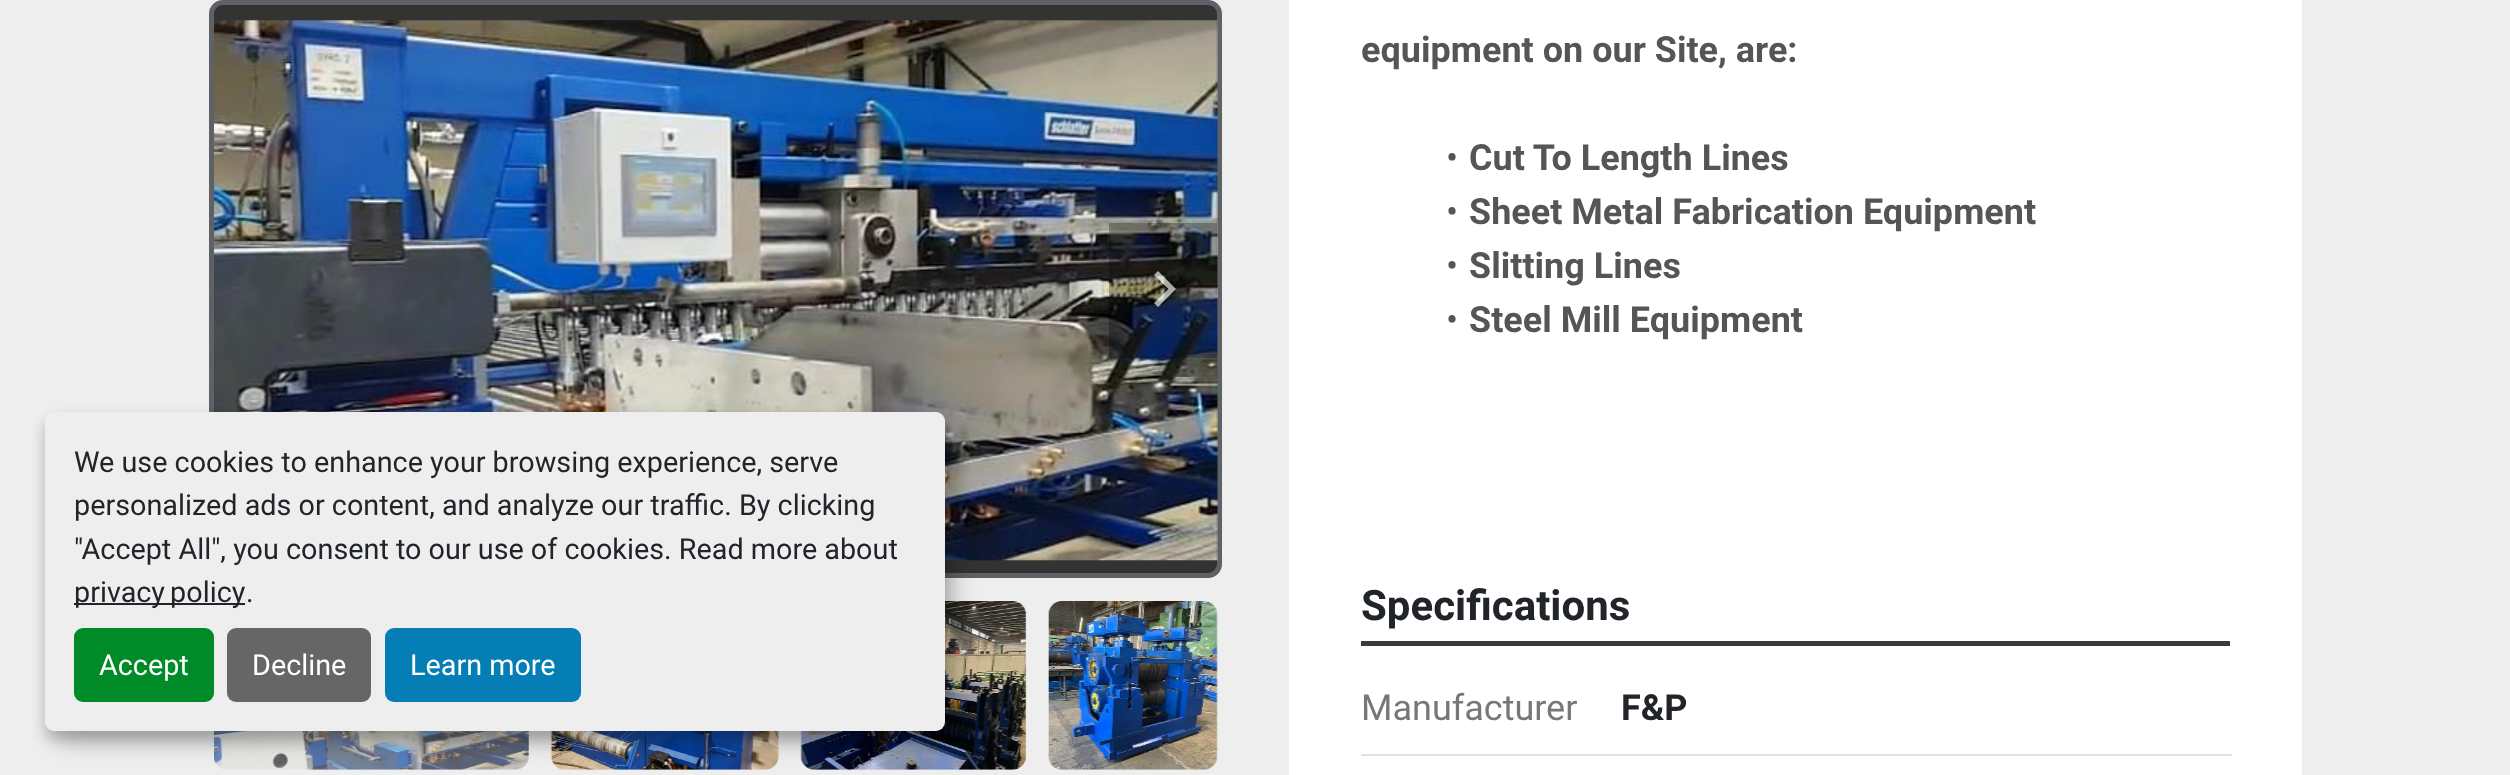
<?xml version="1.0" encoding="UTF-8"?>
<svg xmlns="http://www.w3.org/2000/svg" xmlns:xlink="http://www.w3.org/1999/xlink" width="2510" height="775">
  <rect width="100%" height="100%" fill="#eeeeee" />
  <rect x="211.5" y="2.5" width="1008" height="573" rx="11.5" fill="#333333" stroke="#5e6266" stroke-width="5" />
  <image x="214" y="20" width="1004" height="541" xlink:href="image1.png" />
  <image x="214" y="731" width="315" height="39" xlink:href="image2.png" />
  <image x="550" y="731" width="229" height="39" xlink:href="image3.png" />
  <image x="800" y="601" width="227" height="169" xlink:href="image4.png" />
  <rect x="56" y="423" width="900" height="320" rx="9" fill="#000000" fill-opacity="0.19" filter="blur(11px)" />
  <rect x="45" y="421" width="900" height="319" rx="9" fill="#000000" fill-opacity="0.2" filter="blur(7px)" />
  <rect x="45" y="412" width="900" height="319" rx="9" fill="#eeeeee" />
  <rect x="74" y="603" width="171" height="2" fill="#212529" />
  <rect x="74" y="628" width="140" height="74" rx="9" fill="#008a28" />
  <rect x="227" y="628" width="144" height="74" rx="9" fill="#666666" />
  <rect x="385" y="628" width="196" height="74" rx="9" fill="#057eb6" />
  <rect x="1109" y="223" width="108" height="135" fill="#000000" fill-opacity="0.29" />
  <path d="M 1176 289 l -18 18 l -4 -4 l 14.5 -14 l -14.5 -14 l 4 -4 z" fill="#ffffff" fill-opacity="0.65" />
  <image x="1048" y="601" width="170" height="169" xlink:href="image5.png" />
  <rect x="1289" width="1013" height="775" fill="#ffffff" />
  <rect x="1361" y="641" width="869" height="5" fill="#393c3e" />
  <rect x="1361" y="754" width="871" height="2" fill="#dee2e6" />
  <text x="74" y="472" style="font-family: Roboto; font-size: 28.8px; fill: #212529">We use cookies to enhance your browsing experience, serve</text>
  <text x="74" y="515" style="font-family: Roboto; font-size: 28.8px; fill: #212529">personalized ads or content, and analyze our traffic. By clicking</text>
  <text x="74" y="559" style="font-family: Roboto; font-size: 28.8px; fill: #212529">"Accept All", you consent to our use of cookies. Read more about</text>
  <text x="74" y="602" word-spacing="-2" style="font-family: Roboto; font-size: 28.8px; fill: #212529">privacy policy</text>
  <text x="246" y="602" style="font-family: Roboto; font-size: 28.8px; fill: #212529">.</text>
  <text x="99" y="675" style="font-family: Roboto; font-size: 28.8px; fill: #ffffff">Accept</text>
  <text x="252" y="675" style="font-family: Roboto; font-size: 28.8px; fill: #ffffff">Decline</text>
  <text x="410" y="675" style="font-family: Roboto; font-size: 28.8px; fill: #ffffff">Learn more</text>
  <text x="1361" y="62" style="font-family: Roboto; font-size: 36px; font-weight: bold; fill: #555555">equipment on our Site, are:</text>
  <text x="1446" y="170" style="font-family: Roboto; font-size: 36px; fill: #555555">•</text>
  <text x="1469" y="170" style="font-family: Roboto; font-size: 36px; font-weight: bold; fill: #555555">Cut To Length Lines</text>
  <text x="1446" y="224" style="font-family: Roboto; font-size: 36px; fill: #555555">•</text>
  <text x="1469" y="224" style="font-family: Roboto; font-size: 36px; font-weight: bold; fill: #555555">Sheet Metal Fabrication Equipment</text>
  <text x="1446" y="278" style="font-family: Roboto; font-size: 36px; fill: #555555">•</text>
  <text x="1469" y="278" style="font-family: Roboto; font-size: 36px; font-weight: bold; fill: #555555">Slitting Lines</text>
  <text x="1446" y="332" style="font-family: Roboto; font-size: 36px; fill: #555555">•</text>
  <text x="1469" y="332" style="font-family: Roboto; font-size: 36px; font-weight: bold; fill: #555555">Steel Mill Equipment</text>
  <text x="1361" y="620" style="font-family: Roboto; font-size: 42px; font-weight: bold; fill: #212529">Specifications</text>
  <text x="1361" y="720" style="font-family: Roboto; font-size: 36px; fill: #777777">Manufacturer</text>
  <text x="1621" y="720" style="font-family: Roboto; font-size: 36px; font-weight: bold; fill: #212529">F&amp;P</text>
</svg>
